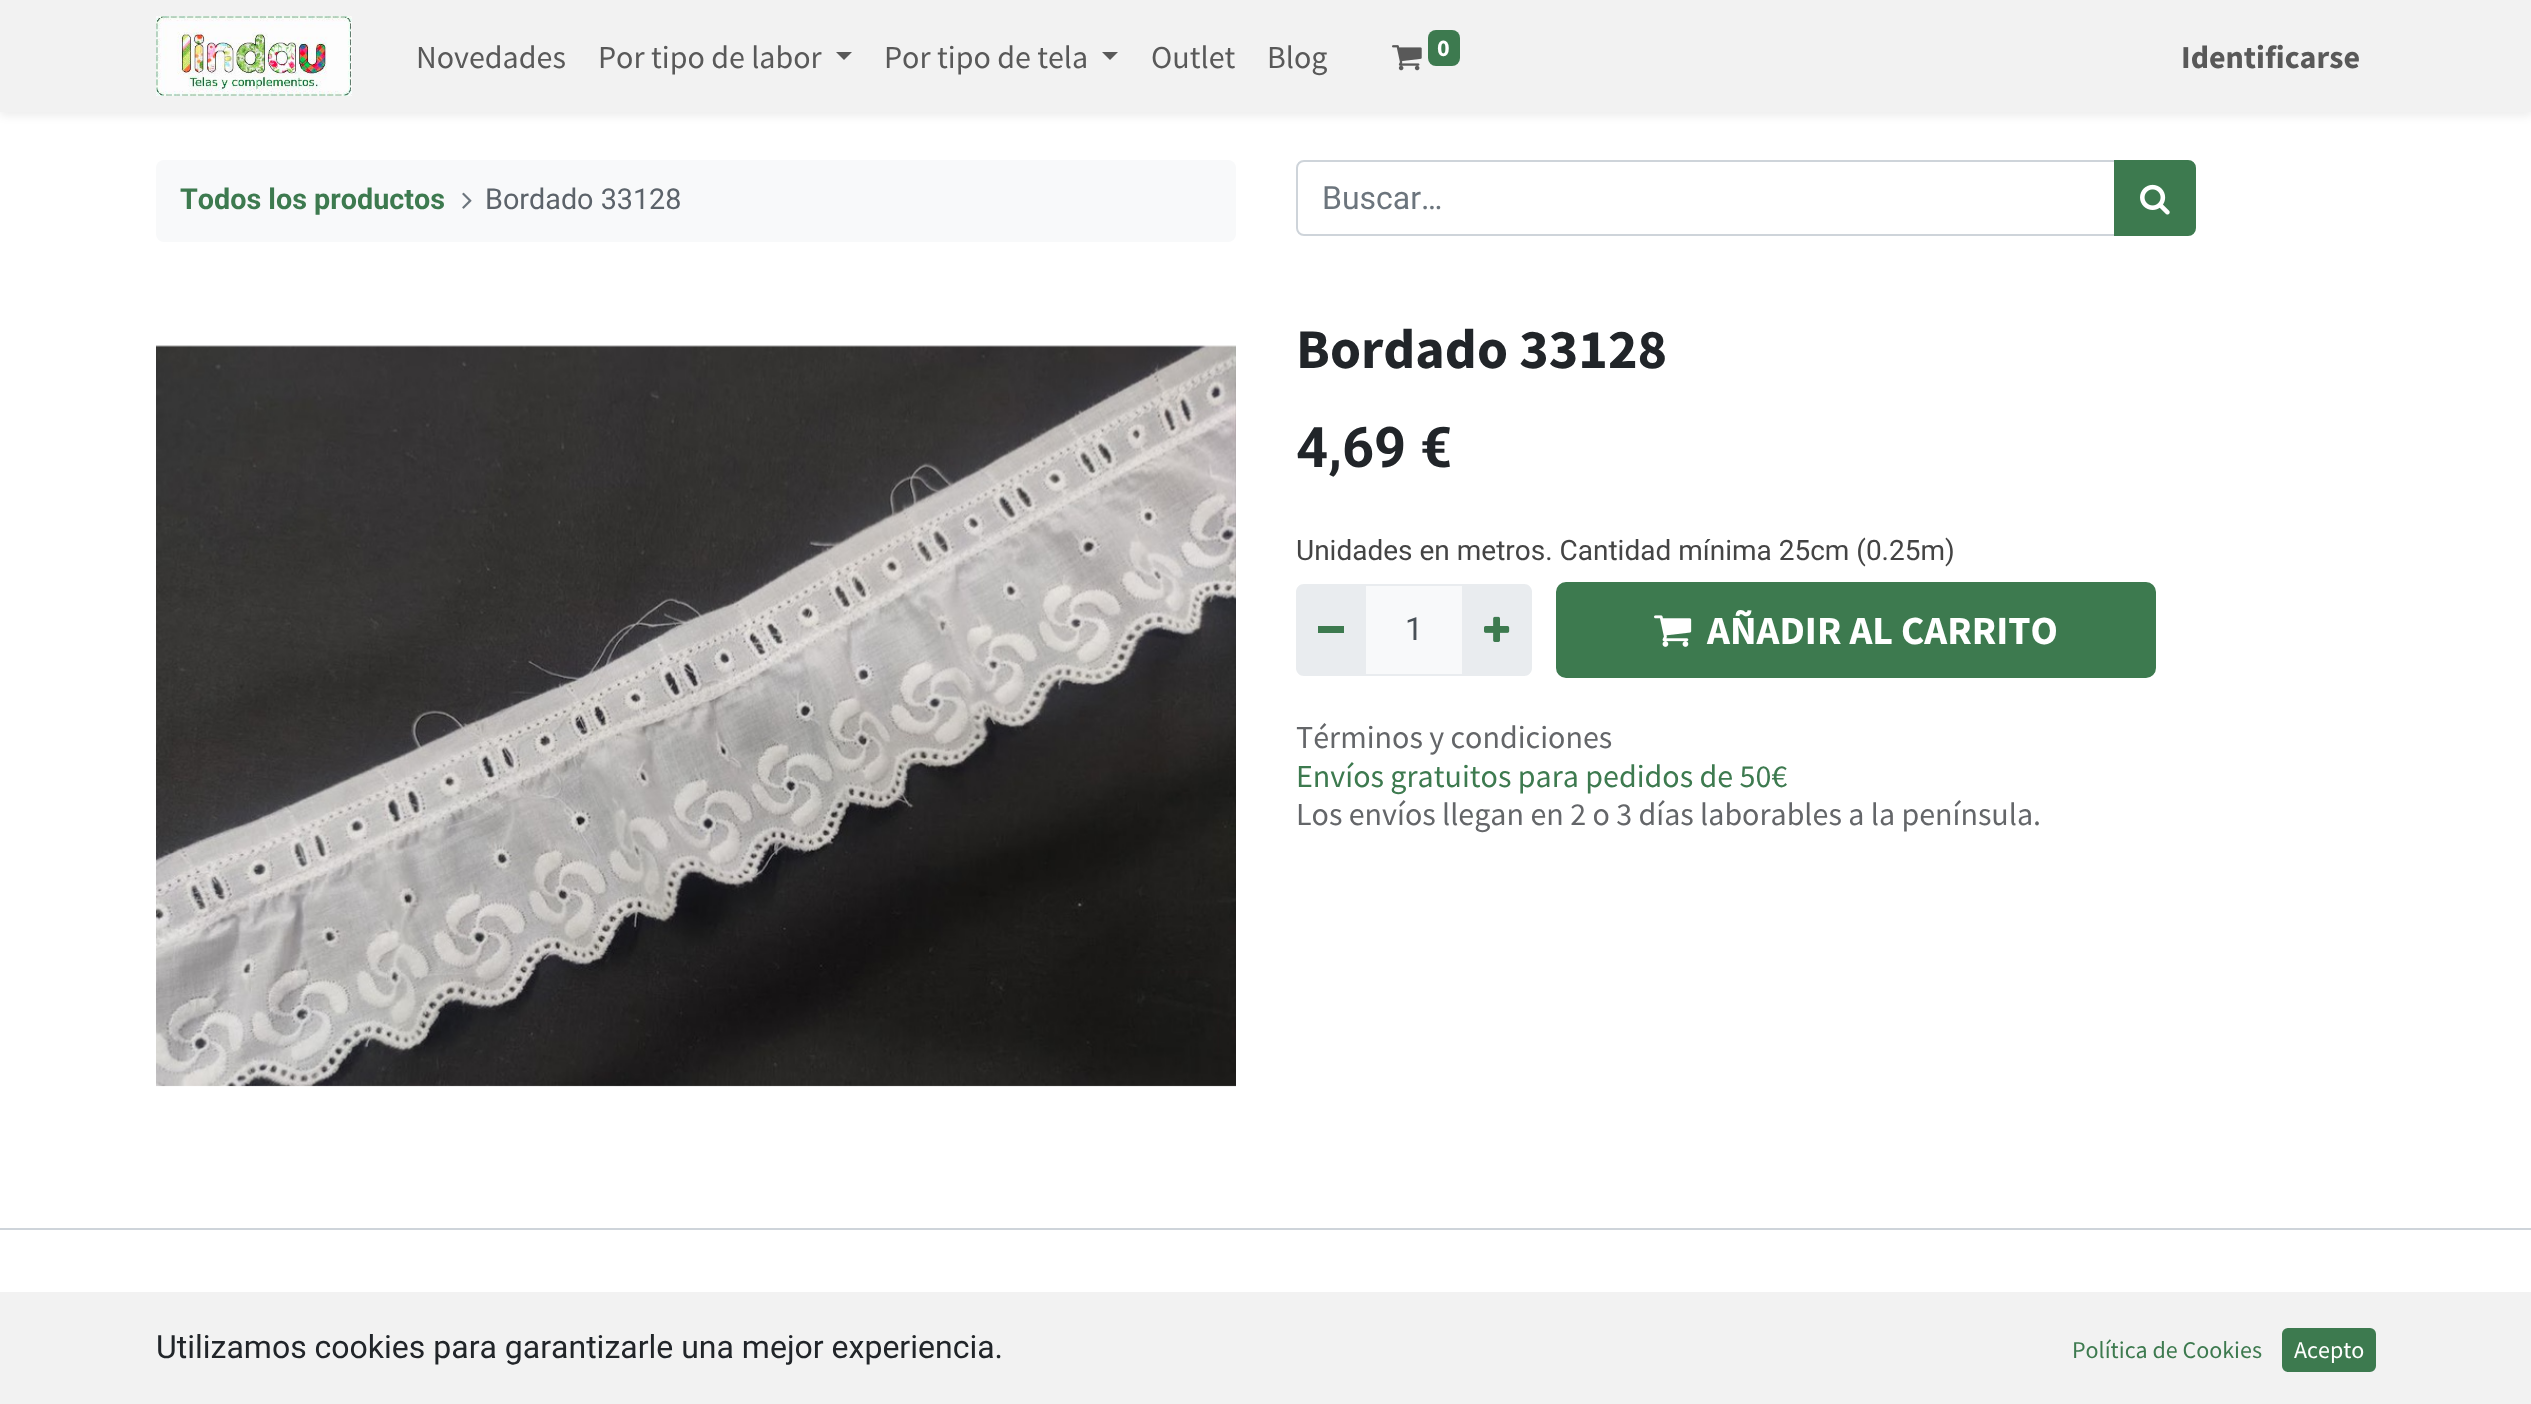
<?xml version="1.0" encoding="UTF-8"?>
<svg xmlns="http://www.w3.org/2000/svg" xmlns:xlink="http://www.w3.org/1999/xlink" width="2531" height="1404">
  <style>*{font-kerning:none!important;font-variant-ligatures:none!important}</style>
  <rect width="100%" height="100%" fill="#ffffff" />
  <rect y="4" width="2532" height="112" fill="#000000" fill-opacity="0.07" filter="blur(4px)" />
  <rect width="2531" height="112" fill="#f2f2f2" />
  <image x="156" y="16" width="196" height="80" xlink:href="image1.png" />
  <path d="M 836 52 h 16 l -8 8 z" fill="#595959" />
  <path d="M 1102 52 h 16 l -8 8 z" fill="#595959" />
  <image x="1392" y="45" width="30" height="26" xlink:href="image2.png" />
  <rect x="1428" y="30" width="32" height="36" rx="8" fill="#3d7a4f" />
  <rect x="156" y="160" width="1080" height="82" rx="8" fill="#f8f9fa" />
  <image x="462" y="192" width="10" height="17" xlink:href="image3.png" />
  <path d="M 1304 161 h 811 v 74 h -811 c -4 0 -7 -3 -7 -7 v -60 c 0 -4 3 -7 7 -7 z" fill="none" stroke="#ced4da" stroke-width="2" />
  <path d="M 2115 161 h 73 c 4 0 7 3 7 7 v 60 c 0 4 -3 7 -7 7 h -73 z" fill="#3d7a4f" stroke="#3d7a4f" stroke-width="2" />
  <image x="2140" y="184" width="30" height="31" xlink:href="image4.png" />
  <image x="156" y="345" width="1080" height="742" xlink:href="image5.png" />
  <rect x="1365" y="585" width="98" height="90" fill="#f8f9fa" stroke="#e9ecef" stroke-width="2" />
  <path d="M 1304 584 h 62 v 92 h -62 c -4.5 0 -8 -3.5 -8 -8 v -76 c 0 -4.5 3.5 -8 8 -8 z" fill="#e9ecef" />
  <rect x="1318" y="626" width="26" height="7" fill="#3d7a4f" />
  <path d="M 1462 584 h 62 c 4.5 0 8 3.5 8 8 v 76 c 0 4.5 -3.5 8 -8 8 h -62 z" fill="#e9ecef" />
  <image x="1484" y="616" width="26" height="26" xlink:href="image6.png" />
  <rect x="1557" y="583" width="598" height="94" rx="9" fill="#3d7a4f" stroke="#3d7a4f" stroke-width="2" />
  <image x="1654" y="615" width="38" height="32" xlink:href="image7.png" />
  <rect y="1228" width="2531" height="2" fill="#ced4da" />
  <rect y="1292" width="2531" height="112" fill="#f2f2f2" />
  <rect x="2283" y="1329" width="92" height="42" rx="5" fill="#3d7a4f" stroke="#3d7a4f" stroke-width="2" />
  <text x="416" y="68" style="font-family: Source Sans Pro; font-size: 32px; fill: #595959">Novedades</text>
  <text x="598" y="68" style="font-family: Source Sans Pro; font-size: 32px; fill: #595959">Por tipo de labor</text>
  <text x="884" y="68" style="font-family: Source Sans Pro; font-size: 32px; fill: #595959">Por tipo de tela</text>
  <text x="1151" y="68" style="font-family: Source Sans Pro; font-size: 32px; fill: #595959">Outlet</text>
  <text x="1267" y="68" style="font-family: Source Sans Pro; font-size: 32px; fill: #595959">Blog</text>
  <text x="1437" y="56" style="font-family: Source Sans Pro; font-size: 24px; font-weight: bold; fill: #ffffff">0</text>
  <text x="2181" y="68" style="font-family: Source Sans Pro; font-size: 32px; font-weight: bold; fill: #595959">Identificarse</text>
  <text x="180" y="209" style="font-family: Roboto; font-size: 28.75px; font-weight: bold; fill: #3d7a4f">Todos los productos</text>
  <text x="485" y="209" style="font-family: Roboto; font-size: 28.75px; fill: #5c636a">Bordado 33128</text>
  <text x="1322" y="209" style="font-family: Roboto; font-size: 32px; fill: #6c757d">Buscar…</text>
  <text x="1296" y="368" style="font-family: Source Sans Pro; font-size: 56px; font-weight: bold; fill: #212529">Bordado 33128</text>
  <text x="1296" y="467" style="font-family: Roboto; font-size: 56px; font-weight: bold; fill: #212529">4,69 €</text>
  <text x="1296" y="560" style="font-family: Roboto; font-size: 28px; fill: #444444">Unidades en metros. Cantidad mínima 25cm (0.25m)</text>
  <text x="1405" y="640" style="font-family: Roboto; font-size: 32px; fill: #495057">1</text>
  <text x="1707" y="644" style="font-family: Source Sans Pro; font-size: 40px; font-weight: bold; fill: #ffffff">AÑADIR AL CARRITO</text>
  <text x="1296" y="748" style="font-family: Source Sans Pro; font-size: 32px; fill: #646669">Términos y condiciones</text>
  <text x="1296" y="787" style="font-family: Source Sans Pro; font-size: 32px; fill: #3d7a4f">Envíos gratuitos para pedidos de 50€</text>
  <text x="1296" y="825" style="font-family: Source Sans Pro; font-size: 32px; fill: #646669">Los envíos llegan en 2 o 3 días laborables a la península.</text>
  <text x="156" y="1358" style="font-family: Roboto; font-size: 32px; fill: #212529">Utilizamos cookies para garantizarle una mejor experiencia.</text>
  <text x="2072" y="1358" style="font-family: Source Sans Pro; font-size: 24px; fill: #3d7a4f">Política de Cookies</text>
  <text x="2294" y="1358" style="font-family: Source Sans Pro; font-size: 24px; fill: #ffffff">Acepto</text>
</svg>
